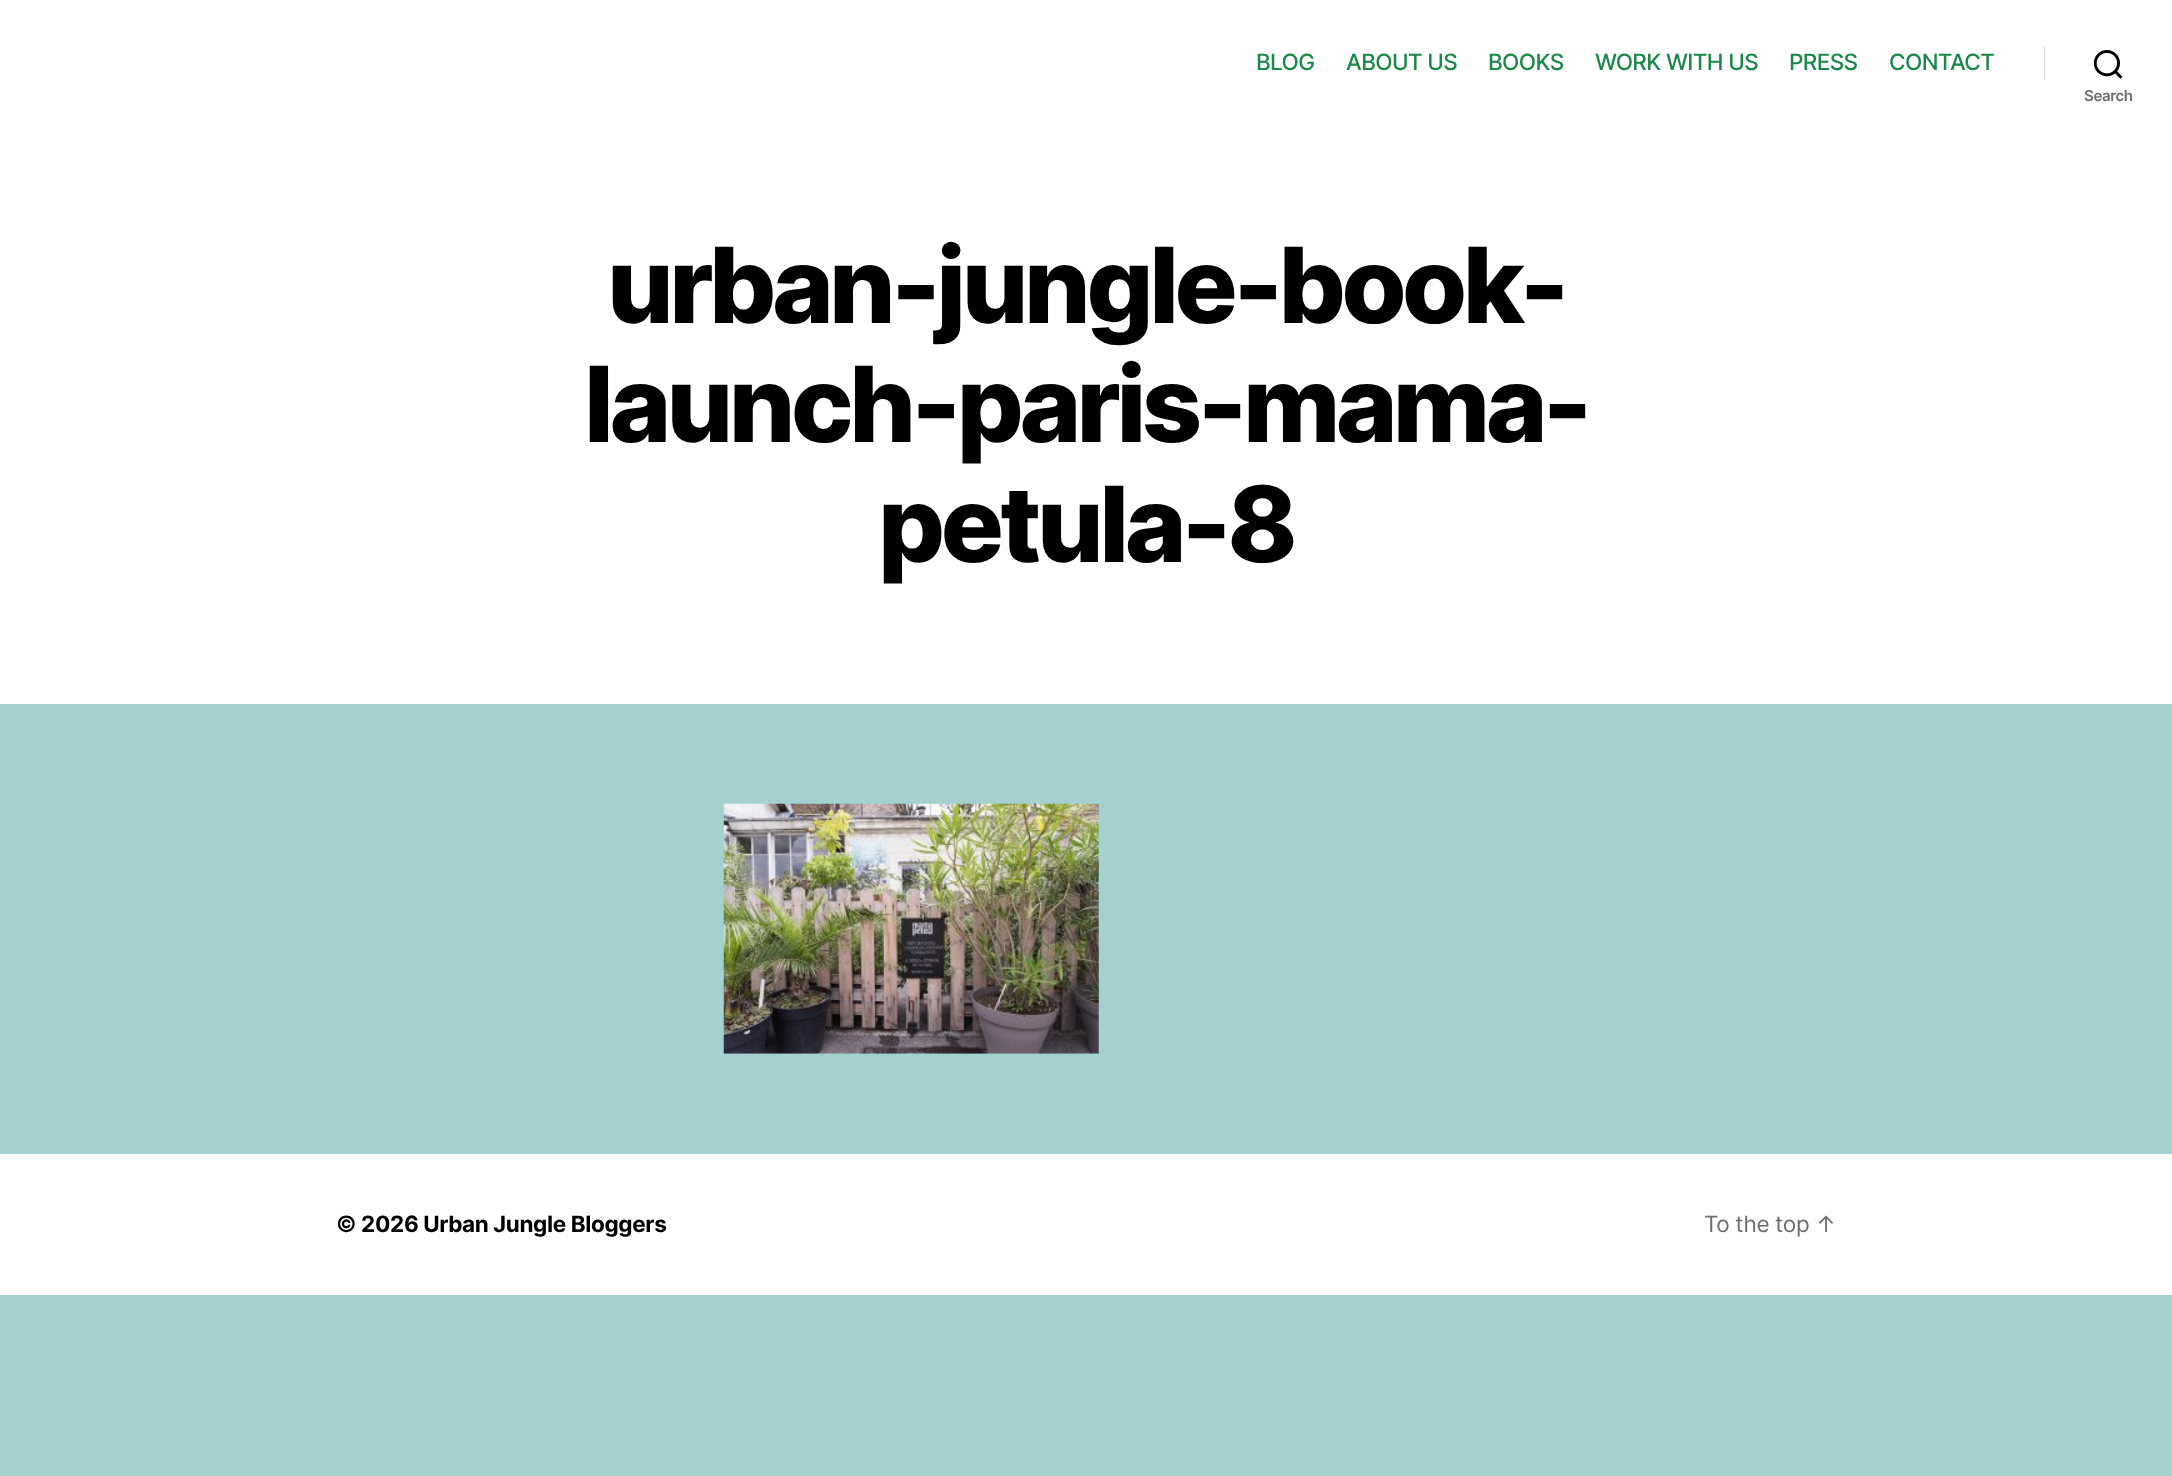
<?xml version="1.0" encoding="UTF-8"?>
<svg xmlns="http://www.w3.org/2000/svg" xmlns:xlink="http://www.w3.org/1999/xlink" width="2172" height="1476">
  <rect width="100%" height="100%" fill="#a2d1d0" />
  <rect width="2172" height="704" fill="#ffffff" />
  <rect x="2044" y="46" width="1" height="34" fill="#dbdbdb" />
  <image x="2094" y="50" width="29" height="29" xlink:href="image1.png" />
  <image x="723" y="803" width="376" height="251" xlink:href="image2.png" />
  <rect y="1154" width="2172" height="141" fill="#ffffff" />
  <text x="1256" y="70" style="font-family: Inter; font-size: 22.5px; font-weight: 500; letter-spacing: -0.6px; fill: #1a8848">BLOG</text>
  <text x="1346" y="70" style="font-family: Inter; font-size: 22.5px; font-weight: 500; letter-spacing: -0.6px; fill: #1a8848">ABOUT US</text>
  <text x="1488" y="70" style="font-family: Inter; font-size: 22.5px; font-weight: 500; letter-spacing: -0.6px; fill: #1a8848">BOOKS</text>
  <text x="1595" y="70" style="font-family: Inter; font-size: 22.5px; font-weight: 500; letter-spacing: -0.6px; fill: #1a8848">WORK WITH US</text>
  <text x="1789" y="70" style="font-family: Inter; font-size: 22.5px; font-weight: 500; letter-spacing: -0.6px; fill: #1a8848">PRESS</text>
  <text x="1889" y="70" style="font-family: Inter; font-size: 22.5px; font-weight: 500; letter-spacing: -0.6px; fill: #1a8848">CONTACT</text>
  <text x="2084" y="101" style="font-family: Inter; font-size: 15px; font-weight: 600; letter-spacing: -0.35px; fill: #6d6d6d">Search</text>
  <text x="607" y="323" style="font-family: Inter; font-size: 105px; font-weight: 800; letter-spacing: -4.4px; fill: #000000">urban-jungle-book-</text>
  <text x="584" y="442" style="font-family: Inter; font-size: 105px; font-weight: 800; letter-spacing: -4.4px; fill: #000000">launch-paris-mama-</text>
  <text x="878" y="562" style="font-family: Inter; font-size: 105px; font-weight: 800; letter-spacing: -4.4px; fill: #000000">petula-8</text>
  <text x="336" y="1232" style="font-family: Inter; font-size: 22.5px; font-weight: bold; letter-spacing: -0.35px; fill: #000000">© 2026 Urban Jungle Bloggers</text>
  <text x="1704" y="1232" style="font-family: Inter; font-size: 22.5px; letter-spacing: -0.35px; fill: #6d6d6d">To the top ↑</text>
</svg>
